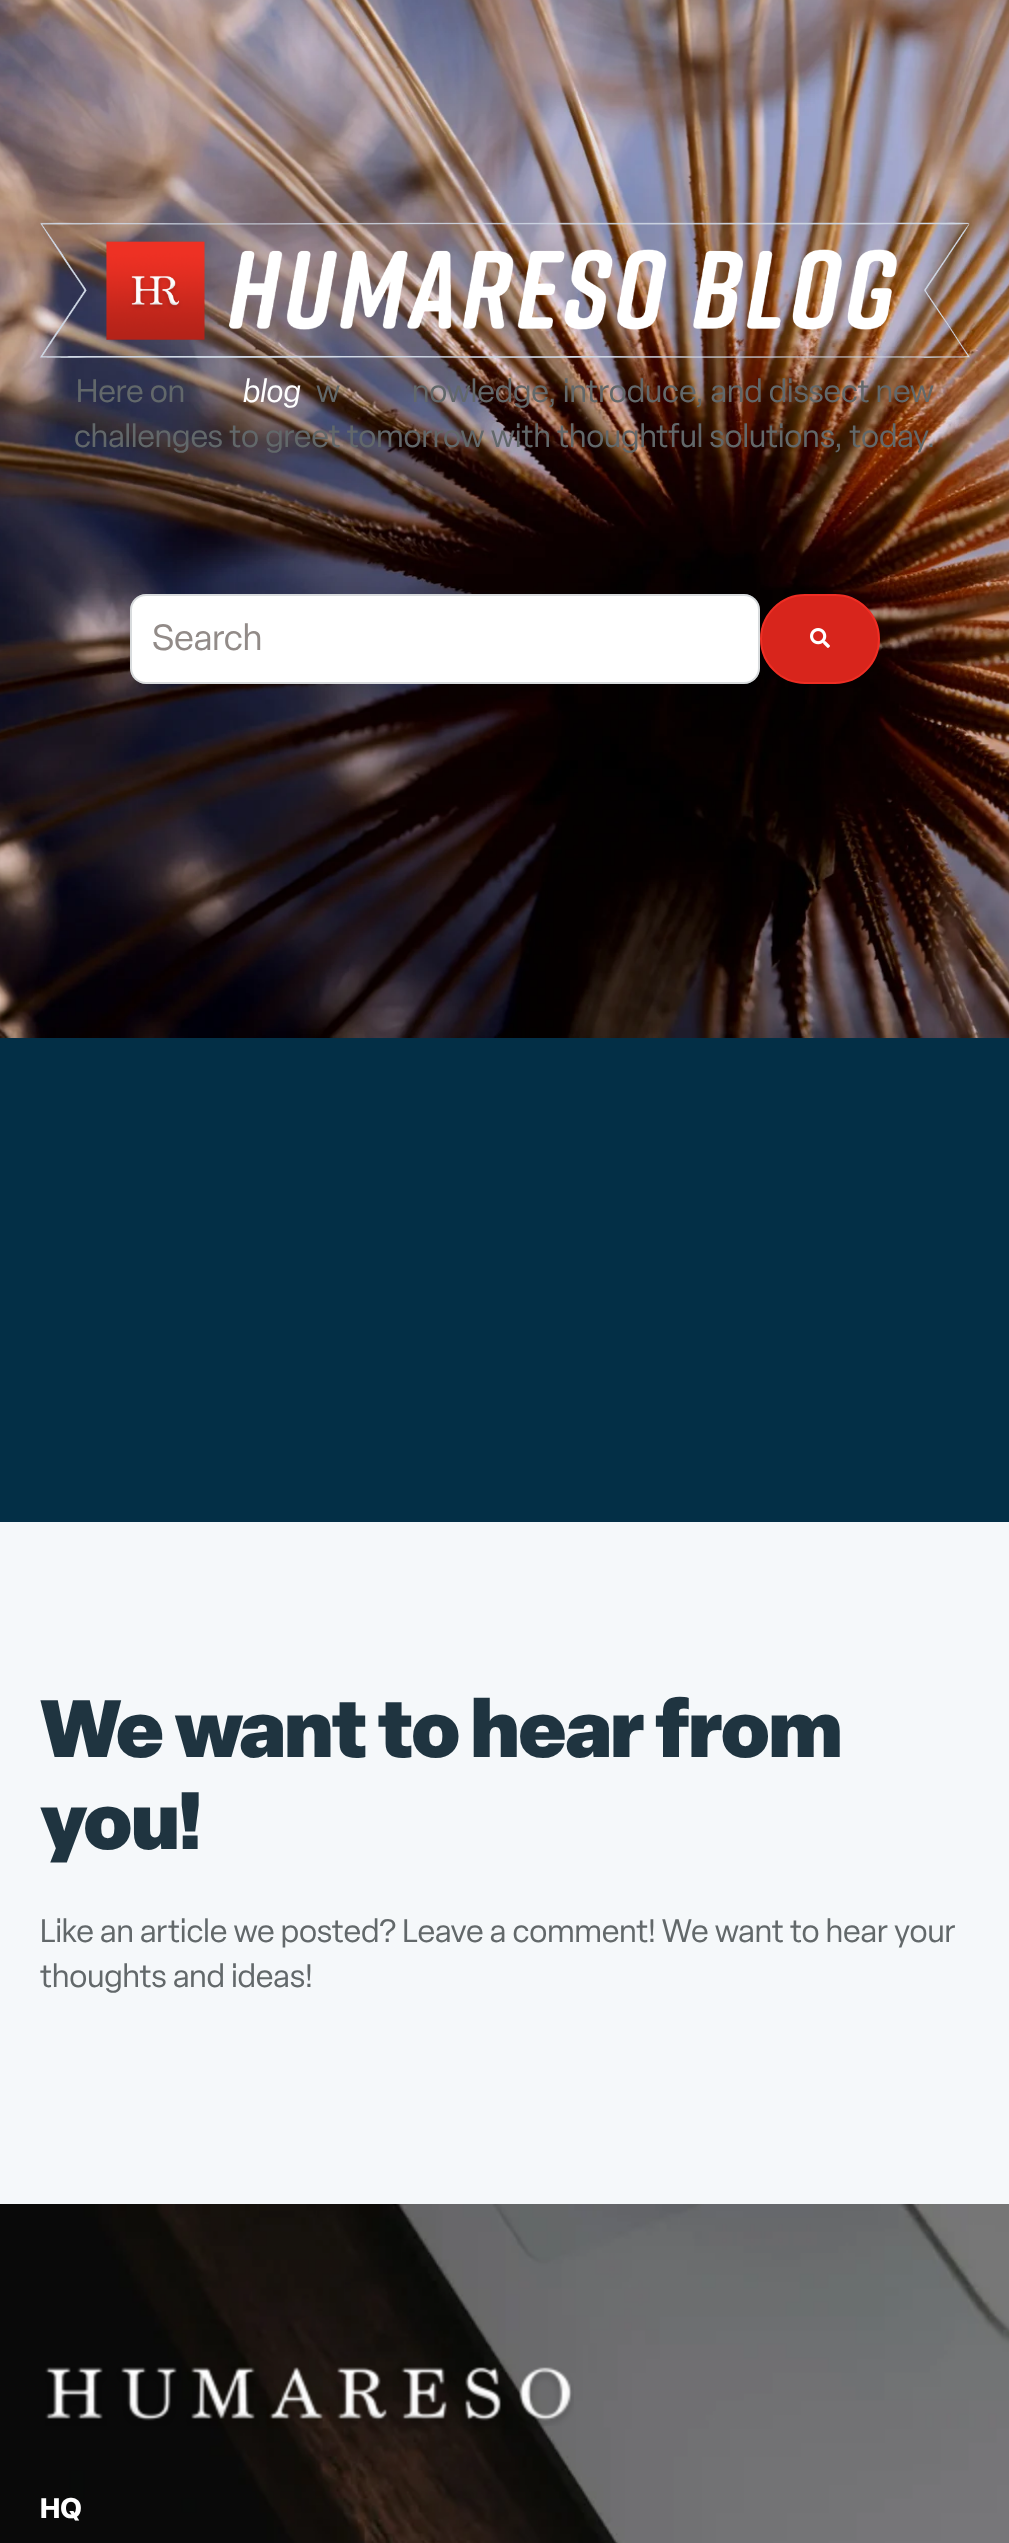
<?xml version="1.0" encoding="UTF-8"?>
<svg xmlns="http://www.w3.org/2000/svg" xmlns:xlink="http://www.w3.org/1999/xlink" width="1009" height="2543">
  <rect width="100%" height="100%" fill="#ffffff" />
  <image x="0" y="0" width="1009" height="1038" xlink:href="image1.png" />
  <image x="40" y="222" width="930" height="136" xlink:href="image2.png" />
  <rect x="130" y="594" width="630" height="90" rx="16" fill="#ffffff" />
  <rect x="131" y="595" width="628" height="88" rx="15" fill="none" stroke="#3b4b56" stroke-opacity="0.2" stroke-width="2" />
  <rect x="761" y="595" width="118" height="88" rx="44" fill="#d8251c" stroke="#ef2e24" stroke-width="2" />
  <image x="810" y="628" width="20" height="20" xlink:href="image3.png" />
  <rect y="1038" width="1009" height="484" fill="#032f46" />
  <rect y="1522" width="1009" height="682" fill="#f5f8fa" />
  <image x="0" y="2204" width="1009" height="339" xlink:href="image4.png" />
  <image x="45" y="2367" width="529" height="59" xlink:href="image5.png" />
  <text x="76" y="402" style="font-family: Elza; font-size: 32px; fill: #62686a">Here on</text>
  <text x="243" y="402" style="font-family: Elza; font-size: 32px; font-style: italic; fill: #ffffff">blog</text>
  <text x="316" y="402" style="font-family: Elza; font-size: 32px; fill: #62686a">w</text>
  <text x="412" y="402" style="font-family: Elza; font-size: 32px; fill: #62686a">nowledge, introduce, and dissect new</text>
  <text x="74" y="447" style="font-family: Elza; font-size: 32px; fill: #62686a">challenges to greet tomorrow with thoughtful solutions, today.</text>
  <text x="152" y="650" style="font-family: Elza; font-size: 36px; fill: #928b88">Search</text>
  <text x="40" y="1757" style="font-family: Elza; font-size: 80px; font-weight: 900; letter-spacing: -1.6px; fill: #1f3440">We want to hear from</text>
  <text x="40" y="1849" style="font-family: Elza; font-size: 80px; font-weight: 900; letter-spacing: -1.6px; fill: #1f3440">you!</text>
  <text x="40" y="1942" style="font-family: Elza; font-size: 32px; fill: #62686a">Like an article we posted? Leave a comment! We want to hear your</text>
  <text x="40" y="1987" style="font-family: Elza; font-size: 32px; fill: #62686a">thoughts and ideas!</text>
  <text x="40" y="2518" style="font-family: Elza; font-size: 28px; font-weight: bold; fill: #ffffff">HQ</text>
</svg>
